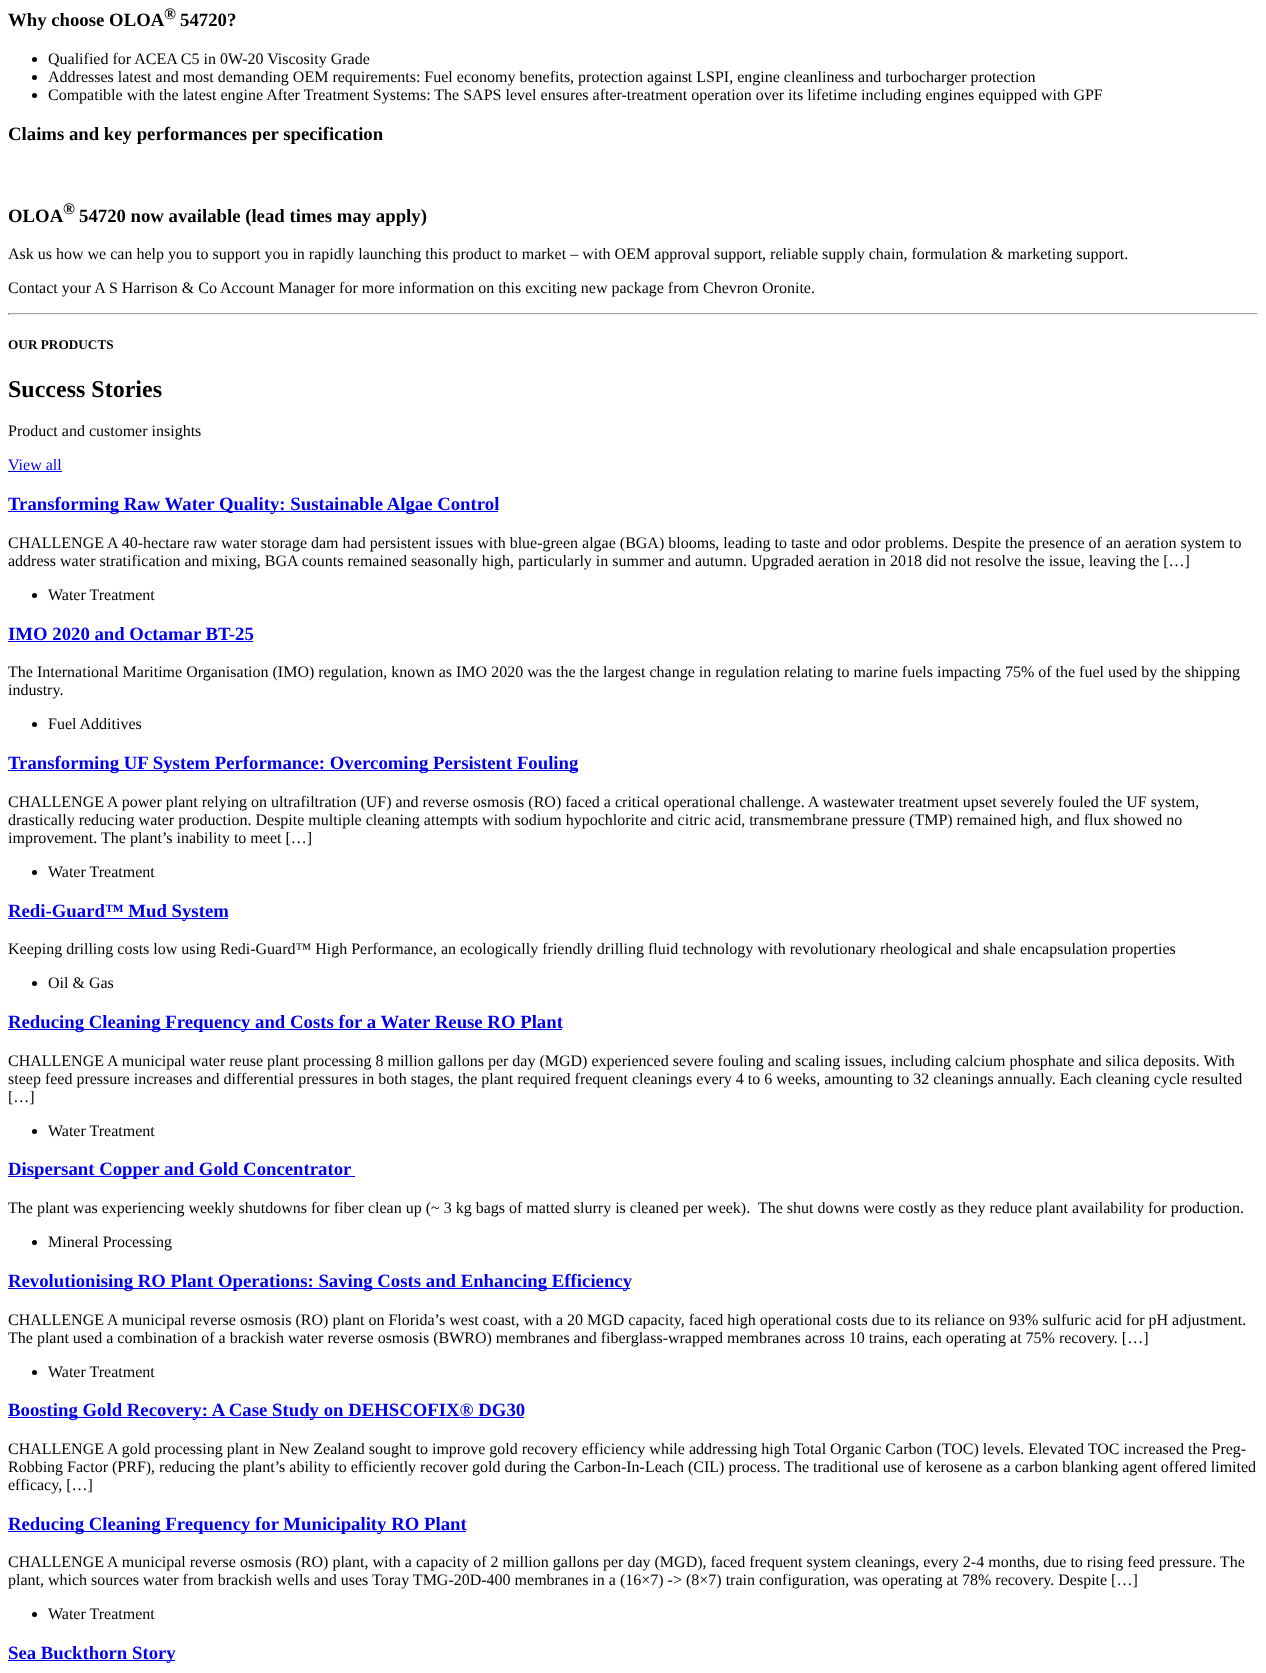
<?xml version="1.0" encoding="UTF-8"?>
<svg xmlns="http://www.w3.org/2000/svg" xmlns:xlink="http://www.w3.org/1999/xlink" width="1266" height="1673">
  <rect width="100%" height="100%" fill="#ffffff" />
  <circle cx="34.5" cy="59.5" r="2.5" fill="#000000" />
  <circle cx="34.5" cy="77.5" r="2.5" fill="#000000" />
  <circle cx="34.5" cy="95.5" r="2.5" fill="#000000" />
  <rect x="8" y="313" width="1250" height="1" fill="#9f9f9f" />
  <rect x="1257" y="313" width="1" height="2" fill="#eeeeee" />
  <rect x="8" y="314" width="1250" height="1" fill="#eeeeee" />
  <rect x="8" y="313" width="1" height="2" fill="#9f9f9f" />
  <rect x="8" y="471" width="54" height="1" fill="#0000ee" />
  <rect x="8" y="511" width="490" height="1" fill="#0000ee" />
  <circle cx="34.5" cy="595.5" r="2.5" fill="#000000" />
  <rect x="8" y="641" width="245" height="1" fill="#0000ee" />
  <circle cx="34.5" cy="724.5" r="2.5" fill="#000000" />
  <rect x="8" y="770" width="569" height="1" fill="#0000ee" />
  <circle cx="34.5" cy="872.5" r="2.5" fill="#000000" />
  <rect x="8" y="918" width="220" height="1" fill="#0000ee" />
  <circle cx="34.5" cy="983.5" r="2.5" fill="#000000" />
  <rect x="8" y="1029" width="554" height="1" fill="#0000ee" />
  <circle cx="34.5" cy="1131.5" r="2.5" fill="#000000" />
  <rect x="8" y="1176" width="347" height="1" fill="#0000ee" />
  <circle cx="34.5" cy="1242.5" r="2.5" fill="#000000" />
  <rect x="8" y="1288" width="622" height="1" fill="#0000ee" />
  <circle cx="34.5" cy="1372.5" r="2.5" fill="#000000" />
  <rect x="8" y="1417" width="516" height="1" fill="#0000ee" />
  <rect x="8" y="1531" width="458" height="1" fill="#0000ee" />
  <circle cx="34.5" cy="1614.5" r="2.5" fill="#000000" />
  <rect x="8" y="1660" width="167" height="1" fill="#0000ee" />
  <text x="8" y="26" style="font-family: Liberation Serif; font-size: 18.75px; font-weight: bold; fill: #000000">Why choose OLOA</text>
  <text x="164" y="19" style="font-family: Liberation Serif; font-size: 16px; font-weight: bold; fill: #000000">®</text>
  <text x="180" y="26" style="font-family: Liberation Serif; font-size: 18.75px; font-weight: bold; fill: #000000">54720?</text>
  <text x="48" y="64" style="font-family: Liberation Serif; font-size: 16px; fill: #000000">Qualified for ACEA C5 in 0W-20 Viscosity Grade</text>
  <text x="48" y="82" style="font-family: Liberation Serif; font-size: 16px; fill: #000000">Addresses latest and most demanding OEM requirements: Fuel economy benefits, protection against LSPI, engine cleanliness and turbocharger protection</text>
  <text x="48" y="100" style="font-family: Liberation Serif; font-size: 16px; fill: #000000">Compatible with the latest engine After Treatment Systems: The SAPS level ensures after-treatment operation over its lifetime including engines equipped with GPF</text>
  <text x="8" y="140" style="font-family: Liberation Serif; font-size: 18.75px; font-weight: bold; fill: #000000">Claims and key performances per specification</text>
  <text x="8" y="222" style="font-family: Liberation Serif; font-size: 18.75px; font-weight: bold; fill: #000000">OLOA</text>
  <text x="63" y="214" style="font-family: Liberation Serif; font-size: 16px; font-weight: bold; fill: #000000">®</text>
  <text x="79" y="222" style="font-family: Liberation Serif; font-size: 18.75px; font-weight: bold; fill: #000000">54720 now available (lead times may apply)</text>
  <text x="8" y="259" style="font-family: Liberation Serif; font-size: 16px; fill: #000000">Ask us how we can help you to support you in rapidly launching this product to market – with OEM approval support, reliable supply chain, formulation &amp; marketing support.</text>
  <text x="8" y="293" style="font-family: Liberation Serif; font-size: 16px; fill: #000000">Contact your A S Harrison &amp; Co Account Manager for more information on this exciting new package from Chevron Oronite.</text>
  <text x="8" y="349" style="font-family: Liberation Serif; font-size: 13.25px; font-weight: bold; fill: #000000">OUR PRODUCTS</text>
  <text x="8" y="397" style="font-family: Liberation Serif; font-size: 24px; font-weight: bold; fill: #000000">Success Stories</text>
  <text x="8" y="436" style="font-family: Liberation Serif; font-size: 16px; fill: #000000">Product and customer insights</text>
  <text x="8" y="470" style="font-family: Liberation Serif; font-size: 16px; fill: #0000ee">View all</text>
  <text x="8" y="510" style="font-family: Liberation Serif; font-size: 18.75px; font-weight: bold; fill: #0000ee">Transforming Raw Water Quality: Sustainable Algae Control</text>
  <text x="8" y="548" style="font-family: Liberation Serif; font-size: 16px; fill: #000000">CHALLENGE A 40-hectare raw water storage dam had persistent issues with blue-green algae (BGA) blooms, leading to taste and odor problems. Despite the presence of an aeration system to</text>
  <text x="8" y="566" style="font-family: Liberation Serif; font-size: 16px; fill: #000000">address water stratification and mixing, BGA counts remained seasonally high, particularly in summer and autumn. Upgraded aeration in 2018 did not resolve the issue, leaving the […]</text>
  <text x="48" y="600" style="font-family: Liberation Serif; font-size: 16px; fill: #000000">Water Treatment</text>
  <text x="8" y="640" style="font-family: Liberation Serif; font-size: 18.75px; font-weight: bold; fill: #0000ee">IMO 2020 and Octamar BT-25</text>
  <text x="8" y="677" style="font-family: Liberation Serif; font-size: 16px; fill: #000000">The International Maritime Organisation (IMO) regulation, known as IMO 2020 was the the largest change in regulation relating to marine fuels impacting 75% of the fuel used by the shipping</text>
  <text x="8" y="695" style="font-family: Liberation Serif; font-size: 16px; fill: #000000">industry.</text>
  <text x="48" y="729" style="font-family: Liberation Serif; font-size: 16px; fill: #000000">Fuel Additives</text>
  <text x="8" y="769" style="font-family: Liberation Serif; font-size: 18.75px; font-weight: bold; fill: #0000ee">Transforming UF System Performance: Overcoming Persistent Fouling</text>
  <text x="8" y="807" style="font-family: Liberation Serif; font-size: 16px; fill: #000000">CHALLENGE A power plant relying on ultrafiltration (UF) and reverse osmosis (RO) faced a critical operational challenge. A wastewater treatment upset severely fouled the UF system,</text>
  <text x="8" y="825" style="font-family: Liberation Serif; font-size: 16px; fill: #000000">drastically reducing water production. Despite multiple cleaning attempts with sodium hypochlorite and citric acid, transmembrane pressure (TMP) remained high, and flux showed no</text>
  <text x="8" y="843" style="font-family: Liberation Serif; font-size: 16px; fill: #000000">improvement. The plant’s inability to meet […]</text>
  <text x="48" y="877" style="font-family: Liberation Serif; font-size: 16px; fill: #000000">Water Treatment</text>
  <text x="8" y="917" style="font-family: Liberation Serif; font-size: 18.75px; font-weight: bold; fill: #0000ee">Redi-Guard™ Mud System</text>
  <text x="8" y="954" style="font-family: Liberation Serif; font-size: 16px; fill: #000000">Keeping drilling costs low using Redi-Guard™ High Performance, an ecologically friendly drilling fluid technology with revolutionary rheological and shale encapsulation properties</text>
  <text x="48" y="988" style="font-family: Liberation Serif; font-size: 16px; fill: #000000">Oil &amp; Gas</text>
  <text x="8" y="1028" style="font-family: Liberation Serif; font-size: 18.75px; font-weight: bold; fill: #0000ee">Reducing Cleaning Frequency and Costs for a Water Reuse RO Plant</text>
  <text x="8" y="1066" style="font-family: Liberation Serif; font-size: 16px; fill: #000000">CHALLENGE A municipal water reuse plant processing 8 million gallons per day (MGD) experienced severe fouling and scaling issues, including calcium phosphate and silica deposits. With</text>
  <text x="8" y="1084" style="font-family: Liberation Serif; font-size: 16px; fill: #000000">steep feed pressure increases and differential pressures in both stages, the plant required frequent cleanings every 4 to 6 weeks, amounting to 32 cleanings annually. Each cleaning cycle resulted</text>
  <text x="8" y="1102" style="font-family: Liberation Serif; font-size: 16px; fill: #000000">[…]</text>
  <text x="48" y="1136" style="font-family: Liberation Serif; font-size: 16px; fill: #000000">Water Treatment</text>
  <text x="8" y="1175" style="font-family: Liberation Serif; font-size: 18.75px; font-weight: bold; fill: #0000ee">Dispersant Copper and Gold Concentrator</text>
  <text x="8" y="1213" style="font-family: Liberation Serif; font-size: 16px; fill: #000000" xml:space="preserve">The plant was experiencing weekly shutdowns for fiber clean up (~ 3 kg bags of matted slurry is cleaned per week).  The shut downs were costly as they reduce plant availability for production.</text>
  <text x="48" y="1247" style="font-family: Liberation Serif; font-size: 16px; fill: #000000">Mineral Processing</text>
  <text x="8" y="1287" style="font-family: Liberation Serif; font-size: 18.75px; font-weight: bold; fill: #0000ee">Revolutionising RO Plant Operations: Saving Costs and Enhancing Efficiency</text>
  <text x="8" y="1325" style="font-family: Liberation Serif; font-size: 16px; fill: #000000">CHALLENGE A municipal reverse osmosis (RO) plant on Florida’s west coast, with a 20 MGD capacity, faced high operational costs due to its reliance on 93% sulfuric acid for pH adjustment.</text>
  <text x="8" y="1343" style="font-family: Liberation Serif; font-size: 16px; fill: #000000">The plant used a combination of a brackish water reverse osmosis (BWRO) membranes and fiberglass-wrapped membranes across 10 trains, each operating at 75% recovery. […]</text>
  <text x="48" y="1377" style="font-family: Liberation Serif; font-size: 16px; fill: #000000">Water Treatment</text>
  <text x="8" y="1416" style="font-family: Liberation Serif; font-size: 18.75px; font-weight: bold; fill: #0000ee">Boosting Gold Recovery: A Case Study on DEHSCOFIX® DG30</text>
  <text x="8" y="1454" style="font-family: Liberation Serif; font-size: 16px; fill: #000000">CHALLENGE A gold processing plant in New Zealand sought to improve gold recovery efficiency while addressing high Total Organic Carbon (TOC) levels. Elevated TOC increased the Preg-</text>
  <text x="8" y="1472" style="font-family: Liberation Serif; font-size: 16px; fill: #000000">Robbing Factor (PRF), reducing the plant’s ability to efficiently recover gold during the Carbon-In-Leach (CIL) process. The traditional use of kerosene as a carbon blanking agent offered limited</text>
  <text x="8" y="1490" style="font-family: Liberation Serif; font-size: 16px; fill: #000000">efficacy, […]</text>
  <text x="8" y="1530" style="font-family: Liberation Serif; font-size: 18.75px; font-weight: bold; fill: #0000ee">Reducing Cleaning Frequency for Municipality RO Plant</text>
  <text x="8" y="1567" style="font-family: Liberation Serif; font-size: 16px; fill: #000000">CHALLENGE A municipal reverse osmosis (RO) plant, with a capacity of 2 million gallons per day (MGD), faced frequent system cleanings, every 2-4 months, due to rising feed pressure. The</text>
  <text x="8" y="1585" style="font-family: Liberation Serif; font-size: 16px; fill: #000000">plant, which sources water from brackish wells and uses Toray TMG-20D-400 membranes in a (16×7) -&gt; (8×7) train configuration, was operating at 78% recovery. Despite […]</text>
  <text x="48" y="1619" style="font-family: Liberation Serif; font-size: 16px; fill: #000000">Water Treatment</text>
  <text x="8" y="1659" style="font-family: Liberation Serif; font-size: 18.75px; font-weight: bold; fill: #0000ee">Sea Buckthorn Story</text>
</svg>
